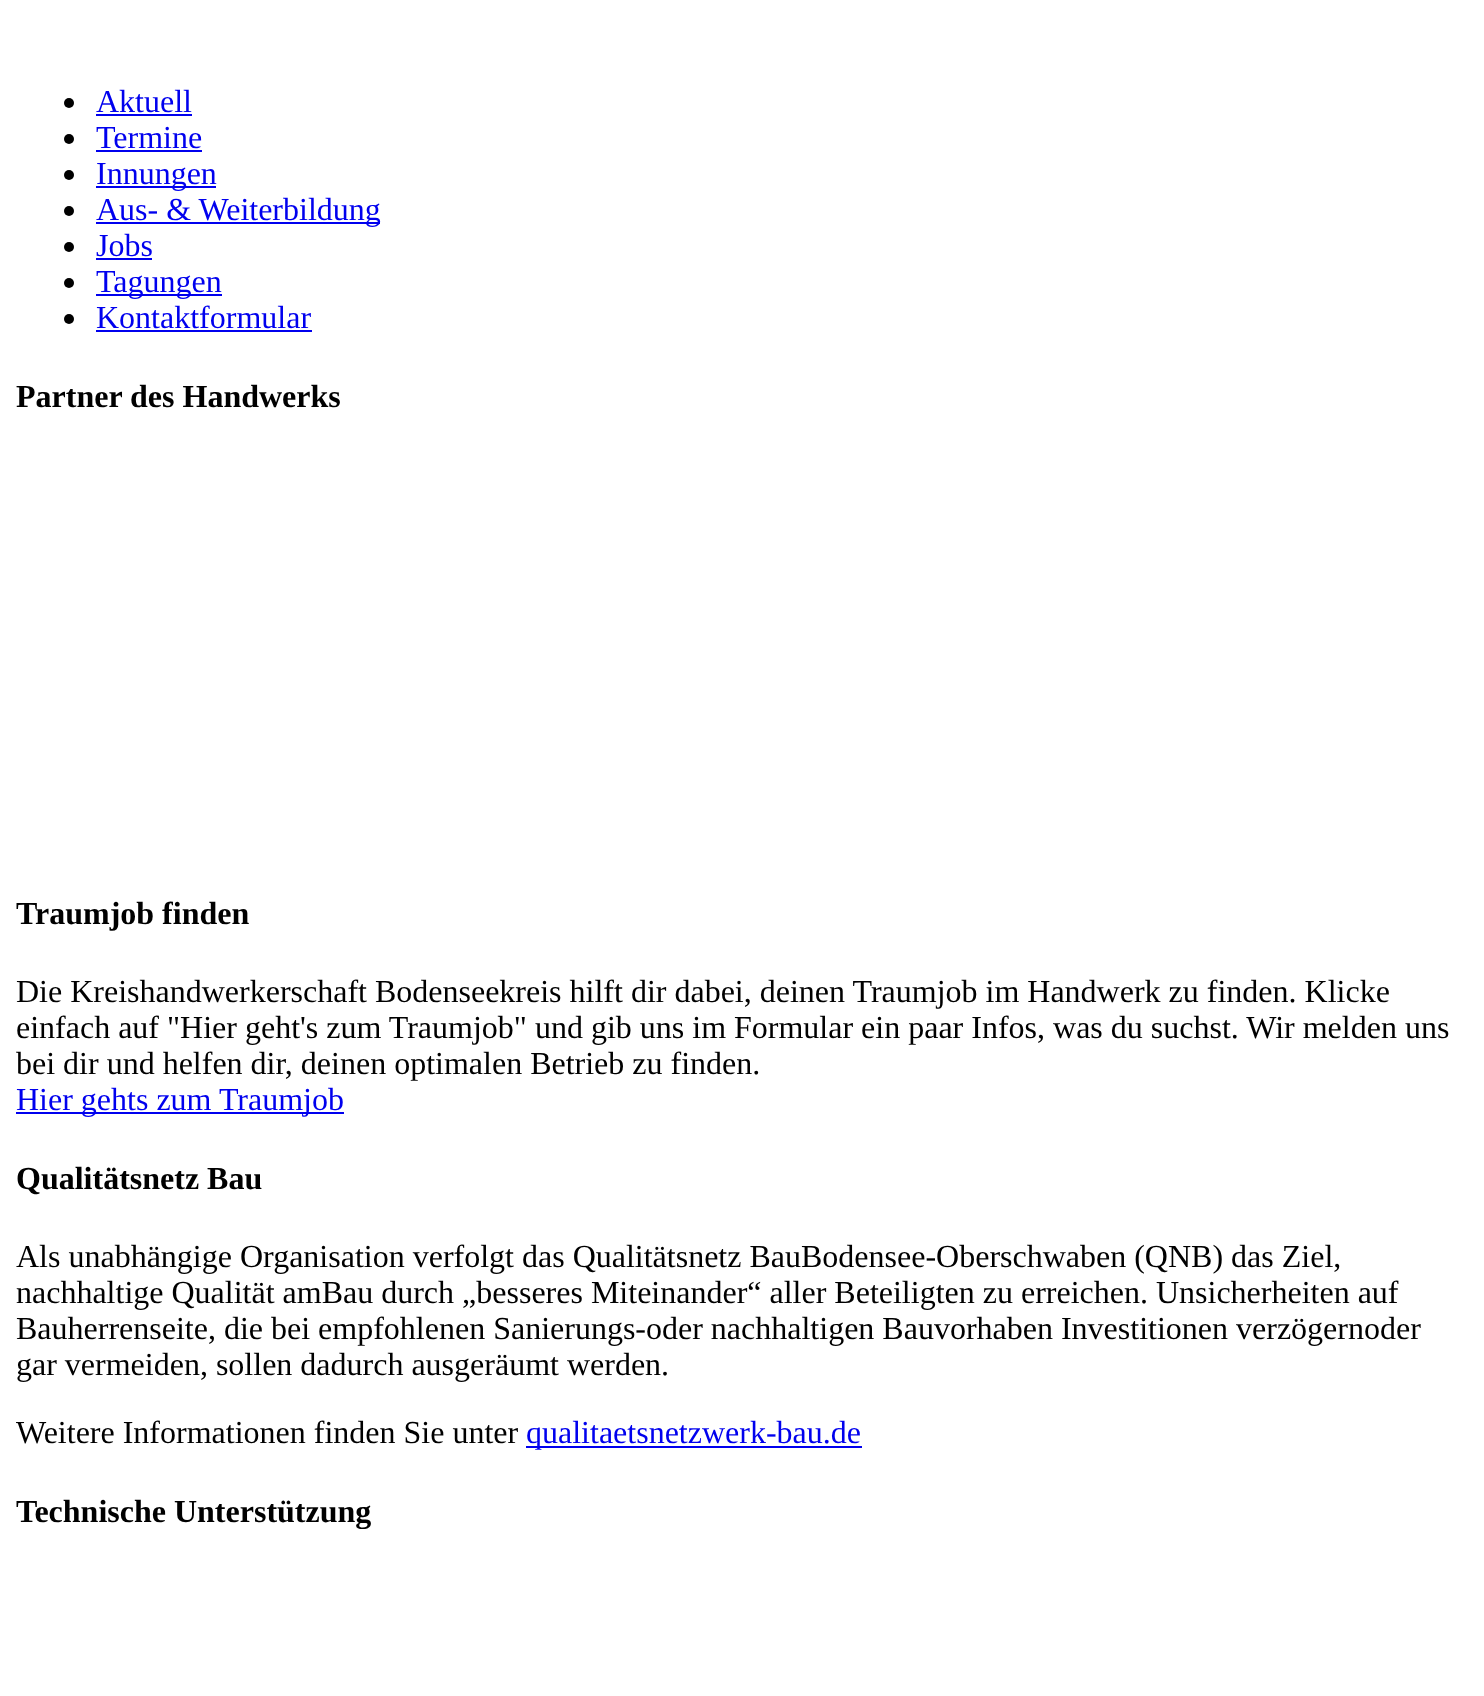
<?xml version="1.0" encoding="UTF-8"?>
<svg xmlns="http://www.w3.org/2000/svg" xmlns:xlink="http://www.w3.org/1999/xlink" width="1484" height="1696">
  <rect width="100%" height="100%" fill="#ffffff" />
  <circle cx="69" cy="103" r="5" fill="#000000" />
  <rect x="96" y="114" width="96" height="2" fill="#0000ee" />
  <circle cx="69" cy="139" r="5" fill="#000000" />
  <rect x="96" y="150" width="106" height="2" fill="#0000ee" />
  <circle cx="69" cy="175" r="5" fill="#000000" />
  <rect x="96" y="186" width="120" height="2" fill="#0000ee" />
  <circle cx="69" cy="211" r="5" fill="#000000" />
  <rect x="96" y="222" width="284" height="2" fill="#0000ee" />
  <circle cx="69" cy="247" r="5" fill="#000000" />
  <rect x="96" y="258" width="56" height="2" fill="#0000ee" />
  <circle cx="69" cy="283" r="5" fill="#000000" />
  <rect x="96" y="294" width="126" height="2" fill="#0000ee" />
  <circle cx="69" cy="319" r="5" fill="#000000" />
  <rect x="96" y="330" width="216" height="2" fill="#0000ee" />
  <rect x="16" y="1112" width="328" height="2" fill="#0000ee" />
  <rect x="526" y="1446" width="336" height="2" fill="#0000ee" />
  <text x="96" y="112" style="font-family: Liberation Serif; font-size: 32px; fill: #0000ee">Aktuell</text>
  <text x="96" y="148" style="font-family: Liberation Serif; font-size: 32px; fill: #0000ee">Termine</text>
  <text x="96" y="184" style="font-family: Liberation Serif; font-size: 32px; fill: #0000ee">Innungen</text>
  <text x="96" y="220" style="font-family: Liberation Serif; font-size: 32px; fill: #0000ee">Aus- &amp; Weiterbildung</text>
  <text x="96" y="256" style="font-family: Liberation Serif; font-size: 32px; fill: #0000ee">Jobs</text>
  <text x="96" y="292" style="font-family: Liberation Serif; font-size: 32px; fill: #0000ee">Tagungen</text>
  <text x="96" y="328" style="font-family: Liberation Serif; font-size: 32px; fill: #0000ee">Kontaktformular</text>
  <text x="16" y="407" style="font-family: Liberation Serif; font-size: 32px; font-weight: bold; fill: #000000">Partner des Handwerks</text>
  <text x="16" y="924" style="font-family: Liberation Serif; font-size: 32px; font-weight: bold; fill: #000000">Traumjob finden</text>
  <text x="16" y="1002" style="font-family: Liberation Serif; font-size: 32px; fill: #000000">Die Kreishandwerkerschaft Bodenseekreis hilft dir dabei, deinen Traumjob im Handwerk zu finden. Klicke</text>
  <text x="16" y="1038" style="font-family: Liberation Serif; font-size: 32px; fill: #000000">einfach auf "Hier geht's zum Traumjob" und gib uns im Formular ein paar Infos, was du suchst. Wir melden uns</text>
  <text x="16" y="1074" style="font-family: Liberation Serif; font-size: 32px; fill: #000000">bei dir und helfen dir, deinen optimalen Betrieb zu finden.</text>
  <text x="16" y="1110" style="font-family: Liberation Serif; font-size: 32px; fill: #0000ee">Hier gehts zum Traumjob</text>
  <text x="16" y="1189" style="font-family: Liberation Serif; font-size: 32px; font-weight: bold; fill: #000000">Qualitätsnetz Bau</text>
  <text x="16" y="1267" style="font-family: Liberation Serif; font-size: 32px; fill: #000000">Als unabhängige Organisation verfolgt das Qualitätsnetz BauBodensee-Oberschwaben (QNB) das Ziel,</text>
  <text x="16" y="1303" style="font-family: Liberation Serif; font-size: 32px; fill: #000000">nachhaltige Qualität amBau durch „besseres Miteinander“ aller Beteiligten zu erreichen. Unsicherheiten auf</text>
  <text x="16" y="1339" style="font-family: Liberation Serif; font-size: 32px; fill: #000000">Bauherrenseite, die bei empfohlenen Sanierungs-oder nachhaltigen Bauvorhaben Investitionen verzögernoder</text>
  <text x="16" y="1375" style="font-family: Liberation Serif; font-size: 32px; fill: #000000">gar vermeiden, sollen dadurch ausgeräumt werden.</text>
  <text x="16" y="1443" style="font-family: Liberation Serif; font-size: 32px; fill: #000000">Weitere Informationen finden Sie unter</text>
  <text x="526" y="1443" style="font-family: Liberation Serif; font-size: 32px; fill: #0000ee">qualitaetsnetzwerk-bau.de</text>
  <text x="16" y="1522" style="font-family: Liberation Serif; font-size: 32px; font-weight: bold; fill: #000000">Technische Unterstützung</text>
</svg>
